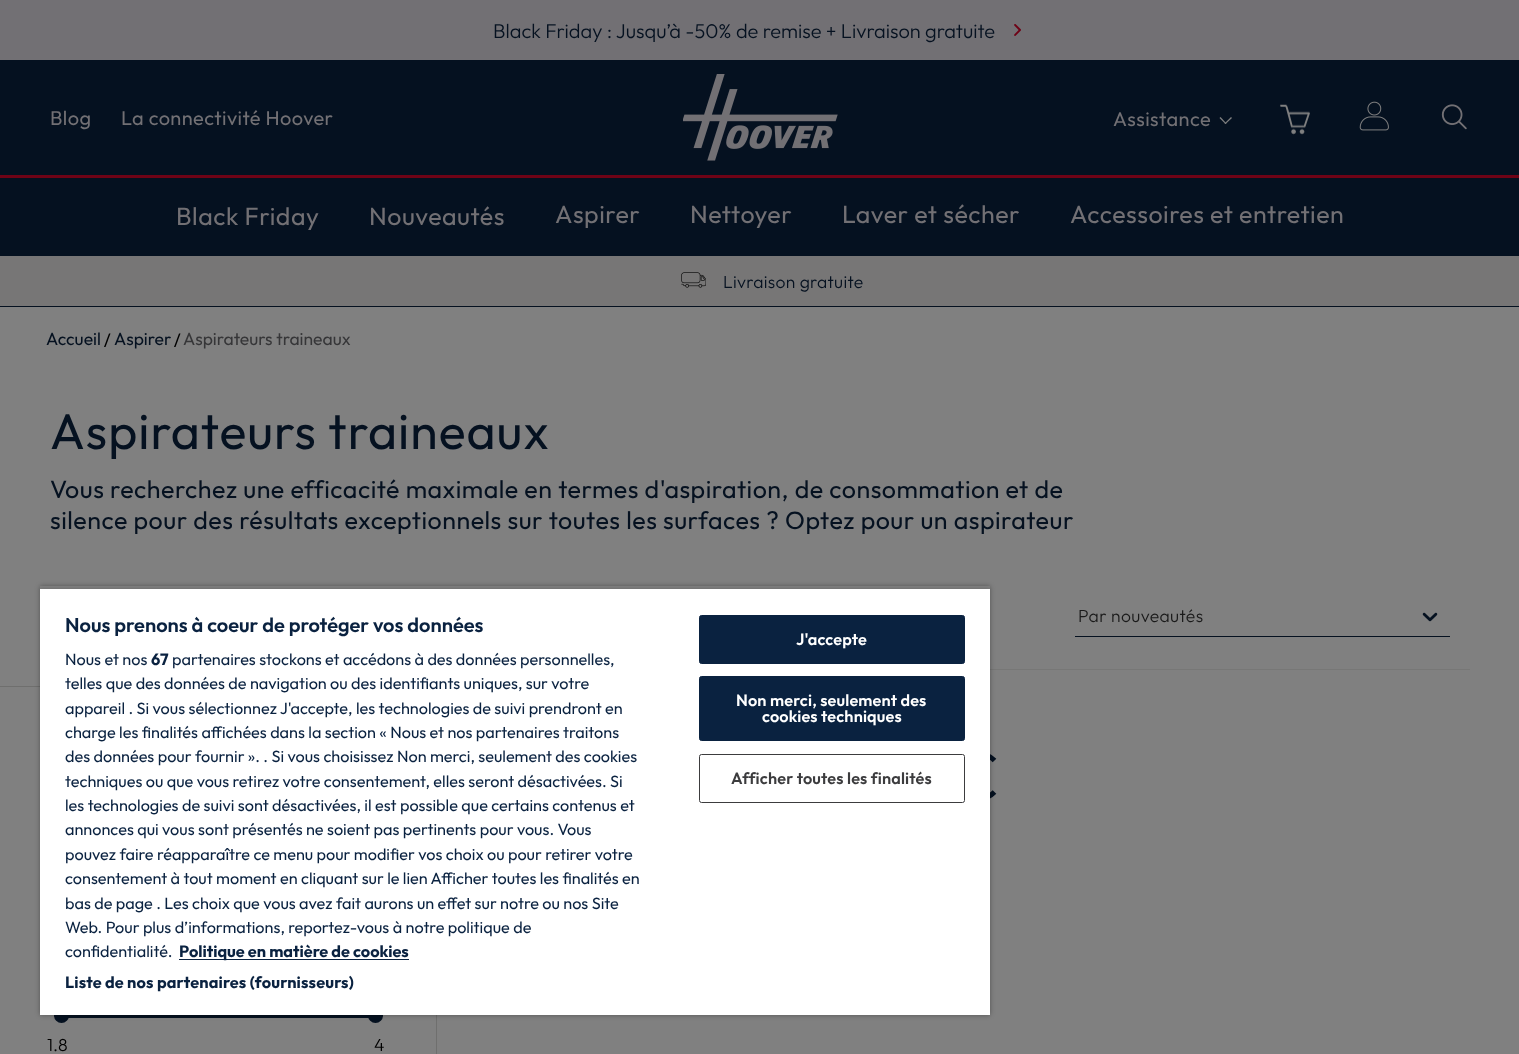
<?xml version="1.0" encoding="UTF-8"?>
<svg xmlns="http://www.w3.org/2000/svg" xmlns:xlink="http://www.w3.org/1999/xlink" width="1519" height="1054">
  <defs>
    <clipPath id="clip1"><path d="M 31 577 h 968 v 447 h -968 z m 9 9 h 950 v 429 h -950 z" clip-rule="evenodd" /></clipPath>
    <clipPath id="clip2"><rect x="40" y="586" width="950" height="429" /></clipPath>
  </defs>
  <rect width="100%" height="100%" fill="#808080" />
  <rect width="1519" height="60" fill="#727074" />
  <image x="1014" y="24" width="7" height="12" xlink:href="image1.png" />
  <rect y="60" width="1519" height="115" fill="#051120" />
  <rect y="175" width="1519" height="3" fill="#6f0316" />
  <image x="683" y="74" width="155" height="87" xlink:href="image2.png" />
  <path d="M 1231 117 l 1 1 l -6.5 6 l -1 -0.5 z" fill="#808080" />
  <path d="M 1220.5 117 l 6 6.5 l -1 0.5 l -6 -6 z" fill="#808080" />
  <image x="1280" y="104" width="30" height="31" xlink:href="image3.png" />
  <image x="1359" y="101" width="30" height="30" xlink:href="image4.png" />
  <image x="1441" y="104" width="26" height="26" xlink:href="image5.png" />
  <rect y="178" width="1519" height="78" fill="#051120" />
  <rect y="306" width="1519" height="1" fill="#051120" />
  <rect y="256" width="1519" height="50" fill="#777676" />
  <image x="681" y="272" width="25" height="16" xlink:href="image6.png" />
  <path d="M 104 347 l 5 -13.5 h 1.5 l -5 13.5 z" fill="#000000" />
  <path d="M 174 347 l 5 -13.5 h 1.5 l -5 13.5 z" fill="#000000" />
  <rect x="990" y="669" width="480" height="1" fill="#777776" />
  <rect x="1075" y="636" width="375" height="1" fill="#051120" />
  <image x="1422" y="612" width="16" height="10" xlink:href="image7.png" />
  <path d="M 963 760.5 c 8.5 -9 23 -9 31.5 0 m 0 31.5 c -8.5 9 -23 9 -31.5 0" fill="none" stroke="#051120" stroke-width="5" />
  <rect y="686" width="40" height="1" fill="#6f6f6e" />
  <rect x="436" y="1015" width="1" height="39" fill="#6f6f6e" />
  <rect x="68" y="1015" width="301" height="3" fill="#051120" />
  <circle cx="61.5" cy="1015.5" r="7.5" fill="#051120" />
  <circle cx="375.5" cy="1015.5" r="7.5" fill="#051120" />
  <g clip-path="url(#clip1)">
    <rect x="40" y="586" width="950" height="429" fill="#000000" fill-opacity="0.35" filter="blur(2.5px)" />
  </g>
  <g clip-path="url(#clip2)">
    <rect x="40" y="589" width="950" height="426" fill="#000000" fill-opacity="0.2" filter="blur(2.5px)" />
  </g>
  <rect x="40" y="589" width="950" height="426" fill="#ffffff" />
  <rect x="179" y="959" width="230" height="1" fill="#0a2240" />
  <rect x="699.5" y="615.5" width="265" height="48" rx="2" fill="#0a2240" stroke="#0a2240" />
  <rect x="699.5" y="676.5" width="265" height="64" rx="2" fill="#0a2240" stroke="#0a2240" />
  <rect x="699.5" y="754.5" width="265" height="48" rx="2" fill="none" stroke="#3c3c3e" />
  <text x="493" y="38" style="font-family: Outfit; font-size: 20px; font-weight: 100; fill: #051120">Black Friday : Jusqu’à -50% de remise + Livraison gratuite</text>
  <text x="50" y="125" style="font-family: 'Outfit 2'; font-size: 20px; font-weight: 100; letter-spacing: 0.4px; fill: #727074">Blog</text>
  <text x="121" y="125" style="font-family: 'Outfit 2'; font-size: 20px; font-weight: 100; letter-spacing: 0.4px; fill: #727074">La connectivité Hoover</text>
  <text x="1113" y="126" style="font-family: 'Outfit 2'; font-size: 20px; font-weight: 100; letter-spacing: 0.4px; fill: #727074">Assistance</text>
  <text x="176" y="225" style="font-family: 'Outfit 2'; font-size: 25px; font-weight: 100; letter-spacing: 0.5px; fill: #727074">Black Friday</text>
  <text x="369" y="225" style="font-family: 'Outfit 2'; font-size: 25px; font-weight: 100; letter-spacing: 0.5px; fill: #727074">Nouveautés</text>
  <text x="555" y="223" style="font-family: 'Outfit 2'; font-size: 25px; font-weight: 100; letter-spacing: 0.5px; fill: #727074">Aspirer</text>
  <text x="690" y="223" style="font-family: 'Outfit 2'; font-size: 25px; font-weight: 100; letter-spacing: 0.5px; fill: #727074">Nettoyer</text>
  <text x="842" y="223" style="font-family: 'Outfit 2'; font-size: 25px; font-weight: 100; letter-spacing: 0.5px; fill: #727074">Laver et sécher</text>
  <text x="1070" y="223" style="font-family: 'Outfit 2'; font-size: 25px; font-weight: 100; letter-spacing: 0.5px; fill: #727074">Accessoires et entretien</text>
  <text x="723" y="288" style="font-family: Outfit; font-size: 17.5px; font-weight: 100; letter-spacing: 0.3px; fill: #051120">Livraison gratuite</text>
  <text x="46" y="345" style="font-family: 'Outfit 2'; font-size: 17.5px; font-weight: 100; fill: #051120">Accueil</text>
  <text x="114" y="345" style="font-family: 'Outfit 2'; font-size: 17.5px; font-weight: 100; fill: #051120">Aspirer</text>
  <text x="183" y="345" style="font-family: 'Outfit 2'; font-size: 17.5px; font-weight: 100; fill: #363638">Aspirateurs traineaux</text>
  <text x="50" y="449" style="font-family: 'Outfit 2'; font-size: 50px; font-weight: 100; letter-spacing: 1px; fill: #051120">Aspirateurs traineaux</text>
  <text x="50" y="498" style="font-family: 'Outfit 2'; font-size: 25px; font-weight: 100; letter-spacing: 0.5px; fill: #051120">Vous recherchez une efficacité maximale en termes d'aspiration, de consommation et de</text>
  <text x="50" y="529" style="font-family: 'Outfit 2'; font-size: 25px; font-weight: 100; letter-spacing: 0.5px; fill: #051120">silence pour des résultats exceptionnels sur toutes les surfaces ? Optez pour un aspirateur</text>
  <text x="1078" y="622" style="font-family: Outfit; font-size: 17.5px; font-weight: 100; letter-spacing: 0.4px; fill: #1a1a1a">Par nouveautés</text>
  <text x="47" y="1051" style="font-family: Outfit; font-size: 17.5px; font-weight: 100; fill: #000000">1.8</text>
  <text x="374" y="1051" style="font-family: Outfit; font-size: 17.5px; font-weight: 100; fill: #000000">4</text>
  <text x="65" y="632" style="font-family: 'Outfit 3'; font-size: 20px; font-weight: 100; fill: #0a2240">Nous prenons à coeur de protéger vos données</text>
  <text x="65" y="665" style="font-family: 'Outfit 2'; font-size: 16.25px; font-weight: 100; fill: #0a2240">Nous et nos</text>
  <text x="151" y="665" style="font-family: 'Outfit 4'; font-size: 16.25px; font-weight: 100; fill: #0a2240">67</text>
  <text x="172" y="665" style="font-family: 'Outfit 2'; font-size: 16.25px; font-weight: 100; fill: #0a2240">partenaires stockons et accédons à des données personnelles,</text>
  <text x="65" y="689" style="font-family: 'Outfit 2'; font-size: 16.25px; font-weight: 100; fill: #0a2240">telles que des données de navigation ou des identifiants uniques, sur votre</text>
  <text x="65" y="714" style="font-family: 'Outfit 2'; font-size: 16.25px; font-weight: 100; fill: #0a2240">appareil . Si vous sélectionnez J'accepte, les technologies de suivi prendront en</text>
  <text x="65" y="738" style="font-family: 'Outfit 2'; font-size: 16.25px; font-weight: 100; fill: #0a2240">charge les finalités affichées dans la section « Nous et nos partenaires traitons</text>
  <text x="65" y="762" style="font-family: 'Outfit 2'; font-size: 16.25px; font-weight: 100; fill: #0a2240">des données pour fournir ». . Si vous choisissez Non merci, seulement des cookies</text>
  <text x="65" y="787" style="font-family: 'Outfit 2'; font-size: 16.25px; font-weight: 100; fill: #0a2240">techniques ou que vous retirez votre consentement, elles seront désactivées.</text>
  <text x="610" y="787" style="font-family: 'Outfit 2'; font-size: 16.25px; font-weight: 100; fill: #0a2240">Si</text>
  <text x="65" y="811" style="font-family: 'Outfit 2'; font-size: 16.25px; font-weight: 100; fill: #0a2240">les technologies de suivi sont désactivées, il est possible que certains contenus et</text>
  <text x="65" y="835" style="font-family: 'Outfit 2'; font-size: 16.25px; font-weight: 100; fill: #0a2240">annonces qui vous sont présentés ne soient pas pertinents pour vous. Vous</text>
  <text x="65" y="860" style="font-family: 'Outfit 2'; font-size: 16.25px; font-weight: 100; fill: #0a2240">pouvez faire réapparaître ce menu pour modifier vos choix ou pour retirer votre</text>
  <text x="65" y="884" style="font-family: 'Outfit 2'; font-size: 16.25px; font-weight: 100; fill: #0a2240">consentement à tout moment en cliquant sur le lien Afficher toutes les finalités en</text>
  <text x="65" y="909" style="font-family: 'Outfit 2'; font-size: 16.25px; font-weight: 100; fill: #0a2240">bas de page . Les choix que vous avez fait aurons un effet sur notre ou nos Site</text>
  <text x="65" y="933" style="font-family: 'Outfit 2'; font-size: 16.25px; font-weight: 100; fill: #0a2240">Web. Pour plus d’informations, reportez-vous à notre politique de</text>
  <text x="65" y="957" style="font-family: 'Outfit 2'; font-size: 16.25px; font-weight: 100; fill: #0a2240">confidentialité.</text>
  <text x="179" y="957" style="font-family: 'Outfit 4'; font-size: 16.25px; font-weight: 100; fill: #0a2240">Politique en matière de cookies</text>
  <text x="65" y="988" style="font-family: 'Outfit 4'; font-size: 16.25px; font-weight: 100; letter-spacing: 0.15px; fill: #0a2240">Liste de nos partenaires (fournisseurs)</text>
  <text x="796" y="645" style="font-family: 'Outfit 3'; font-size: 16.25px; font-weight: 100; letter-spacing: 0.15px; fill: #ffffff">J'accepte</text>
  <text x="736" y="706" style="font-family: 'Outfit 3'; font-size: 16.25px; font-weight: 100; letter-spacing: 0.15px; fill: #ffffff">Non merci, seulement des</text>
  <text x="762" y="722" style="font-family: 'Outfit 3'; font-size: 16.25px; font-weight: 100; letter-spacing: 0.15px; fill: #ffffff">cookies techniques</text>
  <text x="731" y="784" style="font-family: 'Outfit 3'; font-size: 16.25px; font-weight: 100; letter-spacing: 0.15px; fill: #3c3c3e">Afficher toutes les finalités</text>
</svg>
